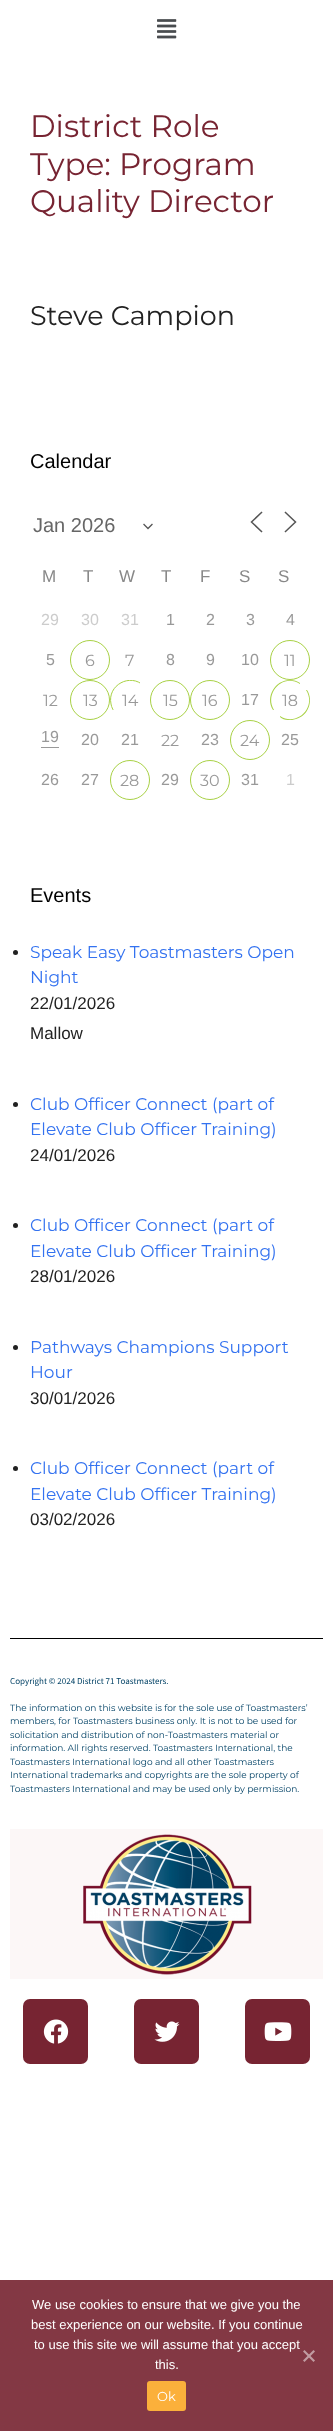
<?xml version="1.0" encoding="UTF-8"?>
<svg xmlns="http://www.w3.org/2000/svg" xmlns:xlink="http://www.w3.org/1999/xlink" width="333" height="2431">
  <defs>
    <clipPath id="clip1"><path d="M 110 680 h 30 v 10 h 10 v 30 h -30 v -10 h -10 z" /></clipPath>
  </defs>
  <rect width="100%" height="100%" fill="#ffffff" />
  <image x="157" y="19" width="20" height="20" xlink:href="image1.png" />
  <path d="M 144 524.5 l 4 4 l 4 -4" fill="none" stroke="#555555" stroke-width="1.3" stroke-linecap="square" />
  <path d="M 261.5 531.5 l -10 -9.5 l 10 -9.5 m 24 19 l 10 -9.5 l -10 -9.5" fill="none" stroke="#555555" stroke-width="1.5" stroke-linecap="square" />
  <circle cx="90" cy="660" r="19.5" fill="none" stroke="#a8d144" />
  <circle cx="290" cy="660" r="19.5" fill="none" stroke="#a8d144" />
  <circle cx="90" cy="700" r="19.5" fill="none" stroke="#a8d144" />
  <g clip-path="url(#clip1)">
    <path d="M 116 714 c -2.5 -3 -4.5 -6.5 -5 -10 c -4 -19 19.5 -31.5 33 -18" fill="none" stroke="#a8d144" />
  </g>
  <circle cx="170" cy="700" r="19.5" fill="none" stroke="#a8d144" />
  <circle cx="210" cy="700" r="19.5" fill="none" stroke="#a8d144" />
  <path d="M 290 680 c 4 0 7 1 10 3 v 1 c -17 -11 -36 9 -26 26 h -1 c -8 -13 2 -30 17 -30 z m -2 40 c -3 0 -6 -1 -8 -3 v -1 c 17 11 37 -9 26 -26 h 1 c 7 11 1 26 -11 29 c -3 1 -5 1 -8 1 z" fill="#a8d144" fill-rule="evenodd" />
  <rect x="41" y="747" width="18" height="1" fill="#999999" />
  <circle cx="250" cy="740" r="19.5" fill="none" stroke="#a8d144" />
  <circle cx="130" cy="780" r="19.5" fill="none" stroke="#a8d144" />
  <circle cx="210" cy="780" r="19.5" fill="none" stroke="#a8d144" />
  <circle cx="15.5" cy="952.5" r="2.5" fill="#212121" />
  <circle cx="15.5" cy="1104.5" r="2.5" fill="#212121" />
  <circle cx="15.5" cy="1225.5" r="2.5" fill="#212121" />
  <circle cx="15.5" cy="1347.5" r="2.5" fill="#212121" />
  <circle cx="15.5" cy="1468.5" r="2.5" fill="#212121" />
  <rect x="10" y="1638" width="313" height="1" fill="#000000" />
  <rect x="10" y="1829" width="313" height="150" fill="#fcf7f7" />
  <image x="83" y="1834" width="169" height="141" xlink:href="image2.png" />
  <rect x="23" y="1999" width="65" height="65" rx="7" fill="#772432" />
  <image x="43" y="2019" width="26" height="25" xlink:href="image3.png" />
  <rect x="134" y="1999" width="65" height="65" rx="7" fill="#772432" />
  <image x="154" y="2021" width="26" height="21" xlink:href="image4.png" />
  <rect x="245" y="1999" width="65" height="65" rx="7" fill="#772432" />
  <image x="264" y="2022" width="28" height="19" xlink:href="image5.png" />
  <rect y="2280" width="333" height="151" fill="#833844" />
  <path d="M 313.5 2350 l 1.5 1.5 l -10.5 10.5 l -1.5 -1.5 z" fill="#c19ca2" />
  <path d="M 303 2351.5 l 1.5 -1.5 l 10.5 10.5 l -1.5 1.5 z" fill="#c19ca2" />
  <rect x="147" y="2381" width="39" height="30" rx="3" fill="#fbb03b" />
  <text x="30" y="137" style="font-family: Montserrat; font-size: 31px; fill: #772432">District Role</text>
  <text x="30" y="175" style="font-family: Montserrat; font-size: 31px; fill: #772432">Type: Program</text>
  <text x="30" y="212" style="font-family: Montserrat; font-size: 31px; fill: #772432">Quality Director</text>
  <text x="30" y="325" style="font-family: Montserrat; font-size: 27px; fill: #222222">Steve Campion</text>
  <text x="30" y="468" style="font-family: Liberation Sans; font-size: 20px; fill: #000000">Calendar</text>
  <text x="33" y="532" style="font-family: Liberation Sans; font-size: 20px; fill: #666666">Jan 2026</text>
  <text x="42" y="582" style="font-family: Liberation Sans; font-size: 17px; fill: #888888">M</text>
  <text x="83" y="582" style="font-family: Liberation Sans; font-size: 17px; fill: #888888">T</text>
  <text x="119" y="582" style="font-family: Liberation Sans; font-size: 17px; fill: #888888">W</text>
  <text x="161" y="582" style="font-family: Liberation Sans; font-size: 17px; fill: #888888">T</text>
  <text x="200" y="582" style="font-family: Liberation Sans; font-size: 17px; fill: #888888">F</text>
  <text x="239" y="582" style="font-family: Liberation Sans; font-size: 17px; fill: #888888">S</text>
  <text x="278" y="582" style="font-family: Liberation Sans; font-size: 17px; fill: #888888">S</text>
  <text x="41" y="625" style="font-family: Liberation Sans; font-size: 16px; fill: #cccccc">29</text>
  <text x="81" y="625" style="font-family: Liberation Sans; font-size: 16px; fill: #cccccc">30</text>
  <text x="121" y="625" style="font-family: Liberation Sans; font-size: 16px; fill: #cccccc">31</text>
  <text x="166" y="625" style="font-family: Liberation Sans; font-size: 16px; fill: #999999">1</text>
  <text x="206" y="625" style="font-family: Liberation Sans; font-size: 16px; fill: #999999">2</text>
  <text x="246" y="625" style="font-family: Liberation Sans; font-size: 16px; fill: #999999">3</text>
  <text x="286" y="625" style="font-family: Liberation Sans; font-size: 16px; fill: #999999">4</text>
  <text x="46" y="665" style="font-family: Liberation Sans; font-size: 16px; fill: #999999">5</text>
  <text x="85" y="666" style="font-family: Montserrat; font-size: 16px; fill: #999999">6</text>
  <text x="125" y="666" style="font-family: Montserrat; font-size: 16px; fill: #999999">7</text>
  <text x="166" y="665" style="font-family: Liberation Sans; font-size: 16px; fill: #999999">8</text>
  <text x="206" y="665" style="font-family: Liberation Sans; font-size: 16px; fill: #999999">9</text>
  <text x="241" y="665" style="font-family: Liberation Sans; font-size: 16px; fill: #999999">10</text>
  <text x="284" y="666" style="font-family: Montserrat; font-size: 16px; fill: #999999">11</text>
  <text x="43" y="706" style="font-family: Montserrat; font-size: 16px; fill: #999999">12</text>
  <text x="83" y="706" style="font-family: Montserrat; font-size: 16px; fill: #999999">13</text>
  <text x="122" y="706" style="font-family: Montserrat; font-size: 16px; fill: #999999">14</text>
  <text x="163" y="706" style="font-family: Montserrat; font-size: 16px; fill: #999999">15</text>
  <text x="202" y="706" style="font-family: Montserrat; font-size: 16px; fill: #999999">16</text>
  <text x="241" y="705" style="font-family: Liberation Sans; font-size: 16px; fill: #999999">17</text>
  <text x="282" y="706" style="font-family: Montserrat; font-size: 16px; fill: #999999">18</text>
  <text x="41" y="742" style="font-family: Liberation Sans; font-size: 16px; fill: #999999">19</text>
  <text x="81" y="745" style="font-family: Liberation Sans; font-size: 16px; fill: #999999">20</text>
  <text x="121" y="745" style="font-family: Liberation Sans; font-size: 16px; fill: #999999">21</text>
  <text x="161" y="746" style="font-family: Montserrat; font-size: 16px; fill: #999999">22</text>
  <text x="201" y="745" style="font-family: Liberation Sans; font-size: 16px; fill: #999999">23</text>
  <text x="240" y="746" style="font-family: Montserrat; font-size: 16px; fill: #999999">24</text>
  <text x="281" y="745" style="font-family: Liberation Sans; font-size: 16px; fill: #999999">25</text>
  <text x="41" y="785" style="font-family: Liberation Sans; font-size: 16px; fill: #999999">26</text>
  <text x="81" y="785" style="font-family: Liberation Sans; font-size: 16px; fill: #999999">27</text>
  <text x="120" y="786" style="font-family: Montserrat; font-size: 16px; fill: #999999">28</text>
  <text x="161" y="785" style="font-family: Liberation Sans; font-size: 16px; fill: #999999">29</text>
  <text x="200" y="786" style="font-family: Montserrat; font-size: 16px; fill: #999999">30</text>
  <text x="241" y="785" style="font-family: Liberation Sans; font-size: 16px; fill: #999999">31</text>
  <text x="286" y="785" style="font-family: Liberation Sans; font-size: 16px; fill: #cccccc">1</text>
  <text x="30" y="902" style="font-family: Liberation Sans; font-size: 20px; fill: #000000">Events</text>
  <text x="30" y="958" style="font-family: Montserrat; font-size: 17px; fill: #3372f0">Speak Easy Toastmasters Open</text>
  <text x="30" y="983" style="font-family: Montserrat; font-size: 17px; fill: #3372f0">Night</text>
  <text x="30" y="1009" style="font-family: Liberation Sans; font-size: 17px; fill: #222222">22/01/2026</text>
  <text x="30" y="1039" style="font-family: Liberation Sans; font-size: 17px; fill: #222222">Mallow</text>
  <text x="30" y="1110" style="font-family: Montserrat; font-size: 17px; fill: #3372f0">Club Officer Connect (part of</text>
  <text x="30" y="1135" style="font-family: Montserrat; font-size: 17px; fill: #3372f0">Elevate Club Officer Training)</text>
  <text x="30" y="1161" style="font-family: Liberation Sans; font-size: 17px; fill: #222222">24/01/2026</text>
  <text x="30" y="1231" style="font-family: Montserrat; font-size: 17px; fill: #3372f0">Club Officer Connect (part of</text>
  <text x="30" y="1257" style="font-family: Montserrat; font-size: 17px; fill: #3372f0">Elevate Club Officer Training)</text>
  <text x="30" y="1282" style="font-family: Liberation Sans; font-size: 17px; fill: #222222">28/01/2026</text>
  <text x="30" y="1353" style="font-family: Montserrat; font-size: 17px; fill: #3372f0">Pathways Champions Support</text>
  <text x="30" y="1378" style="font-family: Montserrat; font-size: 17px; fill: #3372f0">Hour</text>
  <text x="30" y="1404" style="font-family: Liberation Sans; font-size: 17px; fill: #222222">30/01/2026</text>
  <text x="30" y="1474" style="font-family: Montserrat; font-size: 17px; fill: #3372f0">Club Officer Connect (part of</text>
  <text x="30" y="1500" style="font-family: Montserrat; font-size: 17px; fill: #3372f0">Elevate Club Officer Training)</text>
  <text x="30" y="1525" style="font-family: Liberation Sans; font-size: 17px; fill: #222222">03/02/2026</text>
  <text x="10" y="1684" style="font-family: Source Sans Pro; font-size: 9px; fill: #004165">Copyright © 2024 District 71 Toastmasters.</text>
  <text x="10" y="1711" style="font-family: Montserrat; font-size: 9px; fill: #004165">The information on this website is for the sole use of Toastmasters’</text>
  <text x="10" y="1724" style="font-family: Montserrat; font-size: 9px; fill: #004165">members, for Toastmasters business only. It is not to be used for</text>
  <text x="10" y="1738" style="font-family: Montserrat; font-size: 9px; fill: #004165">solicitation and distribution of non-Toastmasters material or</text>
  <text x="10" y="1751" style="font-family: Montserrat; font-size: 9px; fill: #004165">information. All rights reserved. Toastmasters International, the</text>
  <text x="10" y="1765" style="font-family: Montserrat; font-size: 9px; fill: #004165">Toastmasters International logo and all other Toastmasters</text>
  <text x="10" y="1778" style="font-family: Montserrat; font-size: 9px; fill: #004165">International trademarks and copyrights are the sole property of</text>
  <text x="10" y="1792" style="font-family: Montserrat; font-size: 9px; fill: #004165">Toastmasters International and may be used only by permission.</text>
  <text x="32" y="2309" style="font-family: Liberation Sans; font-size: 13px; fill: #ffffff">We use cookies to ensure that we give you the</text>
  <text x="31" y="2329" style="font-family: Liberation Sans; font-size: 13px; fill: #ffffff">best experience on our website. If you continue</text>
  <text x="34" y="2349" style="font-family: Liberation Sans; font-size: 13px; fill: #ffffff">to use this site we will assume that you accept</text>
  <text x="155" y="2369" style="font-family: Liberation Sans; font-size: 13px; fill: #ffffff">this.</text>
  <text x="157" y="2401" style="font-family: Montserrat; font-size: 13px; fill: #ffffff">Ok</text>
</svg>
